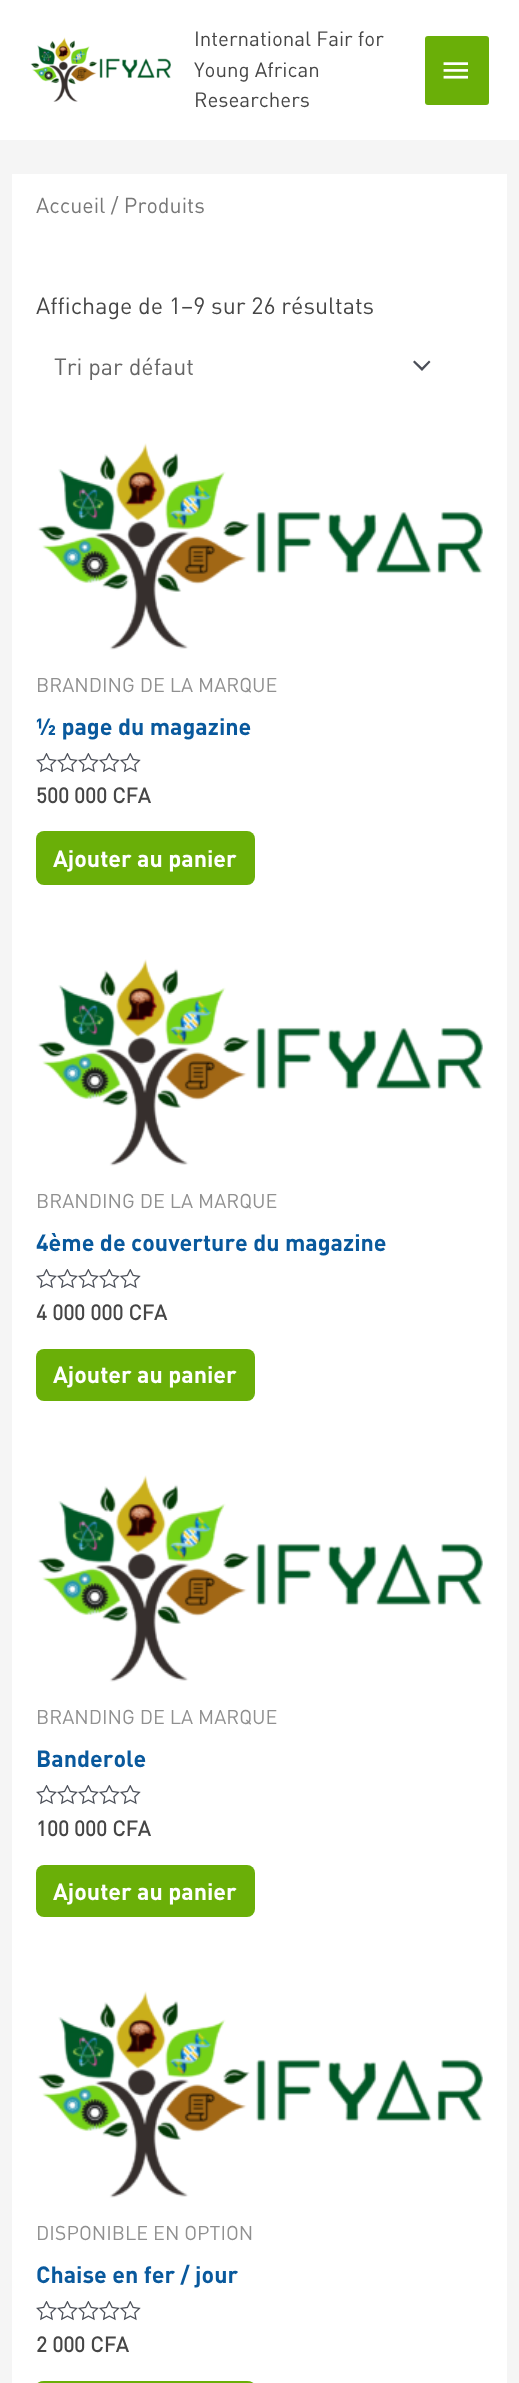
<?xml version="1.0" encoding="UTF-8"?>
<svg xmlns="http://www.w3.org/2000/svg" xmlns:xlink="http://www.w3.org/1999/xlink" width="519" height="2383">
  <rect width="100%" height="100%" fill="#f5f5f5" />
  <rect width="519" height="140" fill="#ffffff" />
  <image x="30" y="37" width="141" height="65" xlink:href="image1.png" />
  <rect x="425" y="36" width="64" height="69" rx="3" fill="#6aaf08" />
  <image x="443" y="62" width="25" height="17" xlink:href="image2.png" />
  <rect x="12" y="174" width="495" height="2209" fill="#ffffff" />
  <path d="M 413 362 l 9 9 l 8.5 -9 l -1.5 -1.5 l -7 7 l -7.5 -7 z" fill="#4b4f58" />
  <image x="37" y="443" width="446" height="207" xlink:href="image3.png" />
  <image x="36" y="753" width="105" height="20" xlink:href="image4.png" />
  <rect x="36" y="831" width="219" height="54" rx="8" fill="#6aaf08" />
  <image x="37" y="959" width="446" height="207" xlink:href="image3.png" />
  <image x="36" y="1269" width="105" height="20" xlink:href="image4.png" />
  <rect x="36" y="1349" width="219" height="52" rx="8" fill="#6aaf08" />
  <image x="37" y="1475" width="446" height="207" xlink:href="image3.png" />
  <image x="36" y="1785" width="105" height="20" xlink:href="image4.png" />
  <rect x="36" y="1865" width="219" height="52" rx="8" fill="#6aaf08" />
  <image x="37" y="1991" width="446" height="207" xlink:href="image3.png" />
  <image x="36" y="2301" width="105" height="20" xlink:href="image4.png" />
  <rect x="36" y="2381" width="219" height="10" rx="8" fill="#6aaf08" />
  <text x="194" y="46" style="font-family: DIN; font-size: 20.5px; fill: #464646">International Fair for</text>
  <text x="194" y="77" style="font-family: DIN; font-size: 20.5px; fill: #464646">Young African</text>
  <text x="194" y="107" style="font-family: DIN; font-size: 20.5px; fill: #464646">Researchers</text>
  <text x="36" y="213" style="font-family: DIN; font-size: 21.5px; fill: #777777">Accueil / Produits</text>
  <text x="36" y="314" style="font-family: DIN; font-size: 23.25px; fill: #464646">Affichage de 1–9 sur 26 résultats</text>
  <text x="54" y="375" style="font-family: DIN; font-size: 23.25px; fill: #666666">Tri par défaut</text>
  <text x="36" y="692" style="font-family: DIN; font-size: 19.75px; fill: #909090">BRANDING DE LA MARQUE</text>
  <text x="36" y="735" style="font-family: DIN; font-size: 23.25px; font-weight: bold; fill: #09599d">½ page du magazine</text>
  <text x="36" y="803" style="font-family: 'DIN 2'; font-size: 21px; font-weight: bold; fill: #464646">500 000 CFA</text>
  <text x="53" y="867" style="font-family: DIN; font-size: 23.25px; font-weight: bold; fill: #ffffff">Ajouter au panier</text>
  <text x="36" y="1208" style="font-family: DIN; font-size: 19.75px; fill: #909090">BRANDING DE LA MARQUE</text>
  <text x="36" y="1251" style="font-family: DIN; font-size: 23.25px; font-weight: bold; fill: #09599d">4ème de couverture du magazine</text>
  <text x="36" y="1320" style="font-family: 'DIN 2'; font-size: 21px; font-weight: bold; fill: #464646">4 000 000 CFA</text>
  <text x="53" y="1383" style="font-family: DIN; font-size: 23.25px; font-weight: bold; fill: #ffffff">Ajouter au panier</text>
  <text x="36" y="1724" style="font-family: DIN; font-size: 19.75px; fill: #909090">BRANDING DE LA MARQUE</text>
  <text x="36" y="1767" style="font-family: DIN; font-size: 23.25px; font-weight: bold; fill: #09599d">Banderole</text>
  <text x="36" y="1836" style="font-family: 'DIN 2'; font-size: 21px; font-weight: bold; fill: #464646">100 000 CFA</text>
  <text x="53" y="1900" style="font-family: DIN; font-size: 23.25px; font-weight: bold; fill: #ffffff">Ajouter au panier</text>
  <text x="36" y="2240" style="font-family: DIN; font-size: 19.75px; fill: #909090">DISPONIBLE EN OPTION</text>
  <text x="36" y="2283" style="font-family: DIN; font-size: 23.25px; font-weight: bold; fill: #09599d">Chaise en fer / jour</text>
  <text x="36" y="2352" style="font-family: 'DIN 2'; font-size: 21px; font-weight: bold; fill: #464646">2 000 CFA</text>
</svg>
